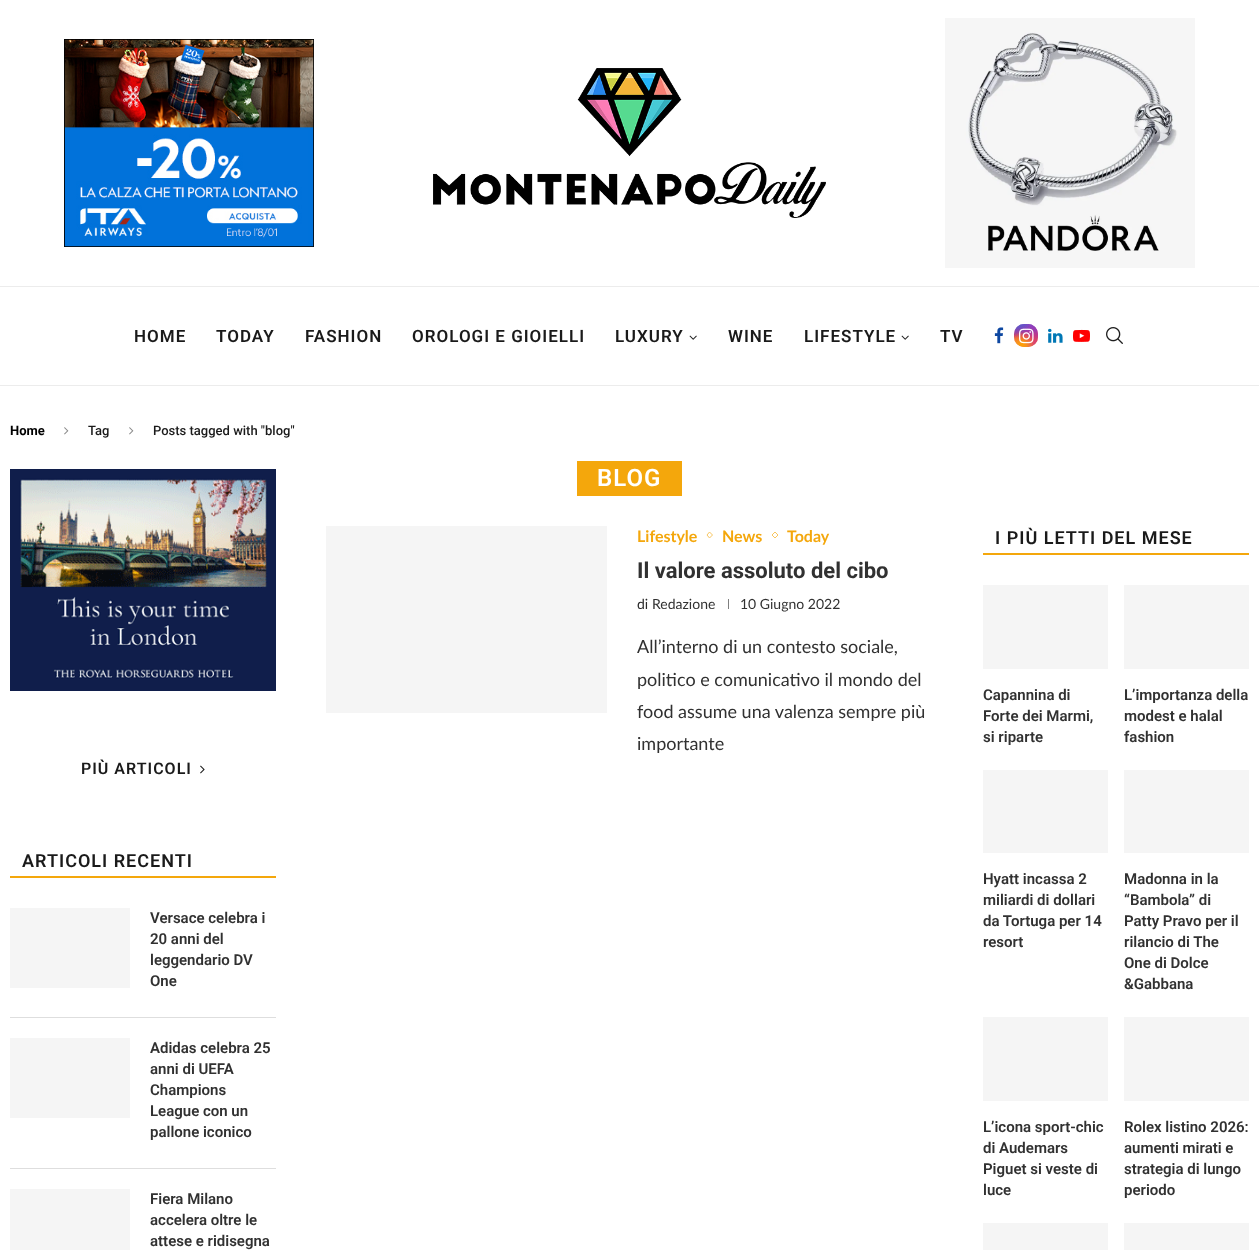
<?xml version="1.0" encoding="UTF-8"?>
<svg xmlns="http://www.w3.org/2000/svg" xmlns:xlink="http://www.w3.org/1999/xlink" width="1259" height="1250">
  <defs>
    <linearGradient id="g1" gradientUnits="userSpaceOnUse" x1="1026" y1="324" x2="1026" y2="347"><stop offset="0" stop-color="#6559ca" /><stop offset="0.3" stop-color="#bc318f" /><stop offset="0.5" stop-color="#e33f5f" /><stop offset="0.7" stop-color="#f77638" /><stop offset="1" stop-color="#fec66d" /></linearGradient>
    <radialGradient id="g2" gradientUnits="userSpaceOnUse" cx="0" cy="0" r="1" gradientTransform="matrix(34 0 0 33 1038 347)"><stop offset="0" stop-color="#d43178" /><stop offset="1" stop-color="#d43178" stop-opacity="0" /></radialGradient>
    <radialGradient id="g3" gradientUnits="userSpaceOnUse" cx="0" cy="0" r="1" gradientTransform="matrix(20 0 0 39 1028 319)"><stop offset="0" stop-color="#8f44c7" /><stop offset="0.5" stop-color="#8f44c7" stop-opacity="0" /></radialGradient>
    <radialGradient id="g4" gradientUnits="userSpaceOnUse" cx="0" cy="0" r="1" gradientTransform="matrix(34 0 0 33 1038 324)"><stop offset="0" stop-color="#893dc2" /><stop offset="0.5" stop-color="#893dc2" stop-opacity="0" /></radialGradient>
    <radialGradient id="g5" gradientUnits="userSpaceOnUse" cx="0" cy="0" r="1" gradientTransform="matrix(27 0 0 49 1019 313)"><stop offset="0" stop-color="#5258cf" /><stop offset="0.5" stop-color="#5258cf" stop-opacity="0" /></radialGradient>
    <radialGradient id="g6" gradientUnits="userSpaceOnUse" cx="0" cy="0" r="1" gradientTransform="matrix(34 0 0 41 1014 318)"><stop offset="0" stop-color="#5258cf" /><stop offset="0.5" stop-color="#5258cf" stop-opacity="0" /></radialGradient>
    <radialGradient id="g7" gradientUnits="userSpaceOnUse" cx="1014" cy="356" r="40"><stop offset="0" stop-color="#efa11c" /><stop offset="0.5" stop-color="#efa11c" stop-opacity="0" /></radialGradient>
    <radialGradient id="g8" gradientUnits="userSpaceOnUse" cx="1022" cy="345" r="26"><stop offset="0" stop-color="#ffa100" /><stop offset="0.5" stop-color="#ffa100" stop-opacity="0" /></radialGradient>
  </defs>
  <rect width="100%" height="100%" fill="#ffffff" />
  <image x="64" y="39" width="250" height="208" xlink:href="image1.png" />
  <image x="433" y="68" width="393" height="150" xlink:href="image2.png" />
  <image x="945" y="18" width="250" height="250" xlink:href="image3.png" />
  <rect y="286" width="1259" height="1" fill="#ececec" />
  <rect y="385" width="1259" height="1" fill="#ececec" />
  <image x="689" y="335" width="8" height="5" xlink:href="image4.png" />
  <image x="901" y="335" width="8" height="5" xlink:href="image4.png" />
  <image x="994" y="327" width="10" height="17" xlink:href="image5.png" />
  <rect x="1014" y="324" width="24" height="23" rx="10" fill="url(#g1)" />
  <rect x="1014" y="324" width="24" height="23" rx="10" fill="url(#g2)" />
  <rect x="1014" y="324" width="24" height="23" rx="10" fill="url(#g3)" />
  <rect x="1014" y="324" width="24" height="23" rx="10" fill="url(#g4)" />
  <rect x="1014" y="324" width="24" height="23" rx="10" fill="url(#g5)" />
  <rect x="1014" y="324" width="24" height="23" rx="10" fill="url(#g6)" />
  <rect x="1014" y="324" width="24" height="23" rx="10" fill="url(#g7)" />
  <rect x="1014" y="324" width="24" height="23" rx="10" fill="url(#g8)" />
  <image x="1019" y="328" width="15" height="16" xlink:href="image6.png" />
  <image x="1048" y="328" width="15" height="15" xlink:href="image7.png" />
  <image x="1073" y="329" width="17" height="13" xlink:href="image8.png" />
  <image x="1106" y="327" width="17" height="17" xlink:href="image9.png" />
  <image x="64" y="427" width="5" height="8" xlink:href="image10.png" />
  <image x="129" y="427" width="5" height="8" xlink:href="image10.png" />
  <image x="10" y="469" width="266" height="222" xlink:href="image11.png" />
  <image x="200" y="765" width="5" height="9" xlink:href="image12.png" />
  <rect x="10" y="876" width="266" height="2" fill="#f4a70c" />
  <rect x="10" y="1017" width="266" height="1" fill="#dedede" />
  <rect x="10" y="908" width="120" height="80" fill="#f5f5f5" />
  <rect x="10" y="1168" width="266" height="1" fill="#dedede" />
  <rect x="10" y="1038" width="120" height="80" fill="#f5f5f5" />
  <rect x="10" y="1189" width="120" height="61" fill="#f5f5f5" />
  <rect x="577" y="461" width="105" height="35" fill="#f4a70c" />
  <rect x="326" y="526" width="281" height="187" fill="#f5f5f5" />
  <path d="M 709.5 532 l 3 3 l -3 3 l -2.5 -3 z" fill="none" stroke="#f8c661" />
  <path d="M 775 532 l 3 3 l -3 3 l -3 -3 z" fill="none" stroke="#f8c661" />
  <rect x="728" y="599" width="1" height="10" fill="#7f7f7f" />
  <rect x="983" y="553" width="266" height="2" fill="#f4a70c" />
  <rect x="983" y="585" width="125" height="84" fill="#f5f5f5" />
  <rect x="1124" y="585" width="125" height="84" fill="#f5f5f5" />
  <rect x="983" y="770" width="125" height="83" fill="#f5f5f5" />
  <rect x="1124" y="770" width="125" height="83" fill="#f5f5f5" />
  <rect x="983" y="1017" width="125" height="84" fill="#f5f5f5" />
  <rect x="1124" y="1017" width="125" height="84" fill="#f5f5f5" />
  <rect x="983" y="1223" width="125" height="27" fill="#f5f5f5" />
  <rect x="1124" y="1223" width="125" height="27" fill="#f5f5f5" />
  <text x="134" y="342" style="font-family: Roboto; font-size: 17px; font-weight: 600; letter-spacing: 1px; fill: #1a1a1a">HOME</text>
  <text x="216" y="342" style="font-family: Roboto; font-size: 17px; font-weight: 600; letter-spacing: 1px; fill: #1a1a1a">TODAY</text>
  <text x="305" y="342" style="font-family: Roboto; font-size: 17px; font-weight: 600; letter-spacing: 1px; fill: #1a1a1a">FASHION</text>
  <text x="412" y="342" style="font-family: Roboto; font-size: 17px; font-weight: 600; letter-spacing: 1px; fill: #1a1a1a">OROLOGI E GIOIELLI</text>
  <text x="615" y="342" style="font-family: Roboto; font-size: 17px; font-weight: 600; letter-spacing: 1px; fill: #1a1a1a">LUXURY</text>
  <text x="728" y="342" style="font-family: Roboto; font-size: 17px; font-weight: 600; letter-spacing: 1px; fill: #1a1a1a">WINE</text>
  <text x="804" y="342" style="font-family: Roboto; font-size: 17px; font-weight: 600; letter-spacing: 1px; fill: #1a1a1a">LIFESTYLE</text>
  <text x="940" y="342" style="font-family: Roboto; font-size: 17px; font-weight: 600; letter-spacing: 1px; fill: #1a1a1a">TV</text>
  <text x="10" y="435" style="font-family: Roboto; font-size: 13px; font-weight: bold; fill: #000000">Home</text>
  <text x="88" y="435" style="font-family: Roboto; font-size: 13px; font-weight: 500; fill: #1a1a1a">Tag</text>
  <text x="153" y="435" style="font-family: Roboto; font-size: 13px; font-weight: 500; fill: #1a1a1a">Posts tagged with "blog"</text>
  <text x="81" y="774" style="font-family: Roboto; font-size: 16px; font-weight: 600; letter-spacing: 1px; fill: #1a1a1a">PIÙ ARTICOLI</text>
  <text x="22" y="867" style="font-family: Roboto; font-size: 18px; font-weight: 600; letter-spacing: 1px; fill: #1a1a1a">ARTICOLI RECENTI</text>
  <text x="150" y="923" style="font-family: Roboto; font-size: 15px; font-weight: 600; fill: #313131">Versace celebra i</text>
  <text x="150" y="944" style="font-family: Roboto; font-size: 15px; font-weight: 600; fill: #313131">20 anni del</text>
  <text x="150" y="965" style="font-family: Roboto; font-size: 15px; font-weight: 600; fill: #313131">leggendario DV</text>
  <text x="150" y="986" style="font-family: Roboto; font-size: 15px; font-weight: 600; fill: #313131">One</text>
  <text x="150" y="1053" style="font-family: Roboto; font-size: 15px; font-weight: 600; fill: #313131">Adidas celebra 25</text>
  <text x="150" y="1074" style="font-family: Roboto; font-size: 15px; font-weight: 600; fill: #313131">anni di UEFA</text>
  <text x="150" y="1095" style="font-family: Roboto; font-size: 15px; font-weight: 600; fill: #313131">Champions</text>
  <text x="150" y="1116" style="font-family: Roboto; font-size: 15px; font-weight: 600; fill: #313131">League con un</text>
  <text x="150" y="1137" style="font-family: Roboto; font-size: 15px; font-weight: 600; fill: #313131">pallone iconico</text>
  <text x="150" y="1204" style="font-family: Roboto; font-size: 15px; font-weight: 600; fill: #313131">Fiera Milano</text>
  <text x="150" y="1225" style="font-family: Roboto; font-size: 15px; font-weight: 600; fill: #313131">accelera oltre le</text>
  <text x="150" y="1246" style="font-family: Roboto; font-size: 15px; font-weight: 600; fill: #313131">attese e ridisegna</text>
  <text x="597" y="486" style="font-family: Roboto; font-size: 24px; font-weight: 600; letter-spacing: 1px; fill: #ffffff">BLOG</text>
  <text x="637" y="542" style="font-family: Lato; font-size: 16px; font-weight: bold; fill: #f4a70c">Lifestyle</text>
  <text x="722" y="542" style="font-family: Lato; font-size: 16px; font-weight: bold; fill: #f4a70c">News</text>
  <text x="787" y="542" style="font-family: Lato; font-size: 16px; font-weight: bold; fill: #f4a70c">Today</text>
  <text x="637" y="578" style="font-family: Roboto; font-size: 22px; font-weight: bold; fill: #313131">Il valore assoluto del cibo</text>
  <text x="637" y="609" style="font-family: Lato; font-size: 14px; fill: #2a2a2a">di</text>
  <text x="652" y="609" style="font-family: Lato; font-size: 14px; fill: #313131">Redazione</text>
  <text x="740" y="609" style="font-family: Lato; font-size: 14px; fill: #313131">10 Giugno 2022</text>
  <text x="637" y="653" style="font-family: Lato; font-size: 18px; fill: #313131">All’interno di un contesto sociale,</text>
  <text x="637" y="686" style="font-family: Lato; font-size: 18px; fill: #313131">politico e comunicativo il mondo del</text>
  <text x="637" y="718" style="font-family: Lato; font-size: 18px; fill: #313131">food assume una valenza sempre più</text>
  <text x="637" y="750" style="font-family: Lato; font-size: 18px; fill: #313131">importante</text>
  <text x="995" y="544" style="font-family: Roboto; font-size: 18px; font-weight: 600; letter-spacing: 1px; fill: #1a1a1a">I PIÙ LETTI DEL MESE</text>
  <text x="983" y="700" style="font-family: Roboto; font-size: 15px; font-weight: 600; fill: #313131">Capannina di</text>
  <text x="983" y="721" style="font-family: Roboto; font-size: 15px; font-weight: 600; fill: #313131">Forte dei Marmi,</text>
  <text x="983" y="742" style="font-family: Roboto; font-size: 15px; font-weight: 600; fill: #313131">si riparte</text>
  <text x="1124" y="700" style="font-family: Roboto; font-size: 15px; font-weight: 600; fill: #313131">L’importanza della</text>
  <text x="1124" y="721" style="font-family: Roboto; font-size: 15px; font-weight: 600; fill: #313131">modest e halal</text>
  <text x="1124" y="742" style="font-family: Roboto; font-size: 15px; font-weight: 600; fill: #313131">fashion</text>
  <text x="983" y="884" style="font-family: Roboto; font-size: 15px; font-weight: 600; fill: #313131">Hyatt incassa 2</text>
  <text x="983" y="905" style="font-family: Roboto; font-size: 15px; font-weight: 600; fill: #313131">miliardi di dollari</text>
  <text x="983" y="926" style="font-family: Roboto; font-size: 15px; font-weight: 600; fill: #313131">da Tortuga per 14</text>
  <text x="983" y="947" style="font-family: Roboto; font-size: 15px; font-weight: 600; fill: #313131">resort</text>
  <text x="1124" y="884" style="font-family: Roboto; font-size: 15px; font-weight: 600; fill: #313131">Madonna in la</text>
  <text x="1124" y="905" style="font-family: Roboto; font-size: 15px; font-weight: 600; fill: #313131">“Bambola” di</text>
  <text x="1124" y="926" style="font-family: Roboto; font-size: 15px; font-weight: 600; fill: #313131">Patty Pravo per il</text>
  <text x="1124" y="947" style="font-family: Roboto; font-size: 15px; font-weight: 600; fill: #313131">rilancio di The</text>
  <text x="1124" y="968" style="font-family: Roboto; font-size: 15px; font-weight: 600; fill: #313131">One di Dolce</text>
  <text x="1124" y="989" style="font-family: Roboto; font-size: 15px; font-weight: 600; fill: #313131">&amp;Gabbana</text>
  <text x="983" y="1132" style="font-family: Roboto; font-size: 15px; font-weight: 600; fill: #313131">L’icona sport-chic</text>
  <text x="983" y="1153" style="font-family: Roboto; font-size: 15px; font-weight: 600; fill: #313131">di Audemars</text>
  <text x="983" y="1174" style="font-family: Roboto; font-size: 15px; font-weight: 600; fill: #313131">Piguet si veste di</text>
  <text x="983" y="1195" style="font-family: Roboto; font-size: 15px; font-weight: 600; fill: #313131">luce</text>
  <text x="1124" y="1132" style="font-family: Roboto; font-size: 15px; font-weight: 600; fill: #313131">Rolex listino 2026:</text>
  <text x="1124" y="1153" style="font-family: Roboto; font-size: 15px; font-weight: 600; fill: #313131">aumenti mirati e</text>
  <text x="1124" y="1174" style="font-family: Roboto; font-size: 15px; font-weight: 600; fill: #313131">strategia di lungo</text>
  <text x="1124" y="1195" style="font-family: Roboto; font-size: 15px; font-weight: 600; fill: #313131">periodo</text>
</svg>
